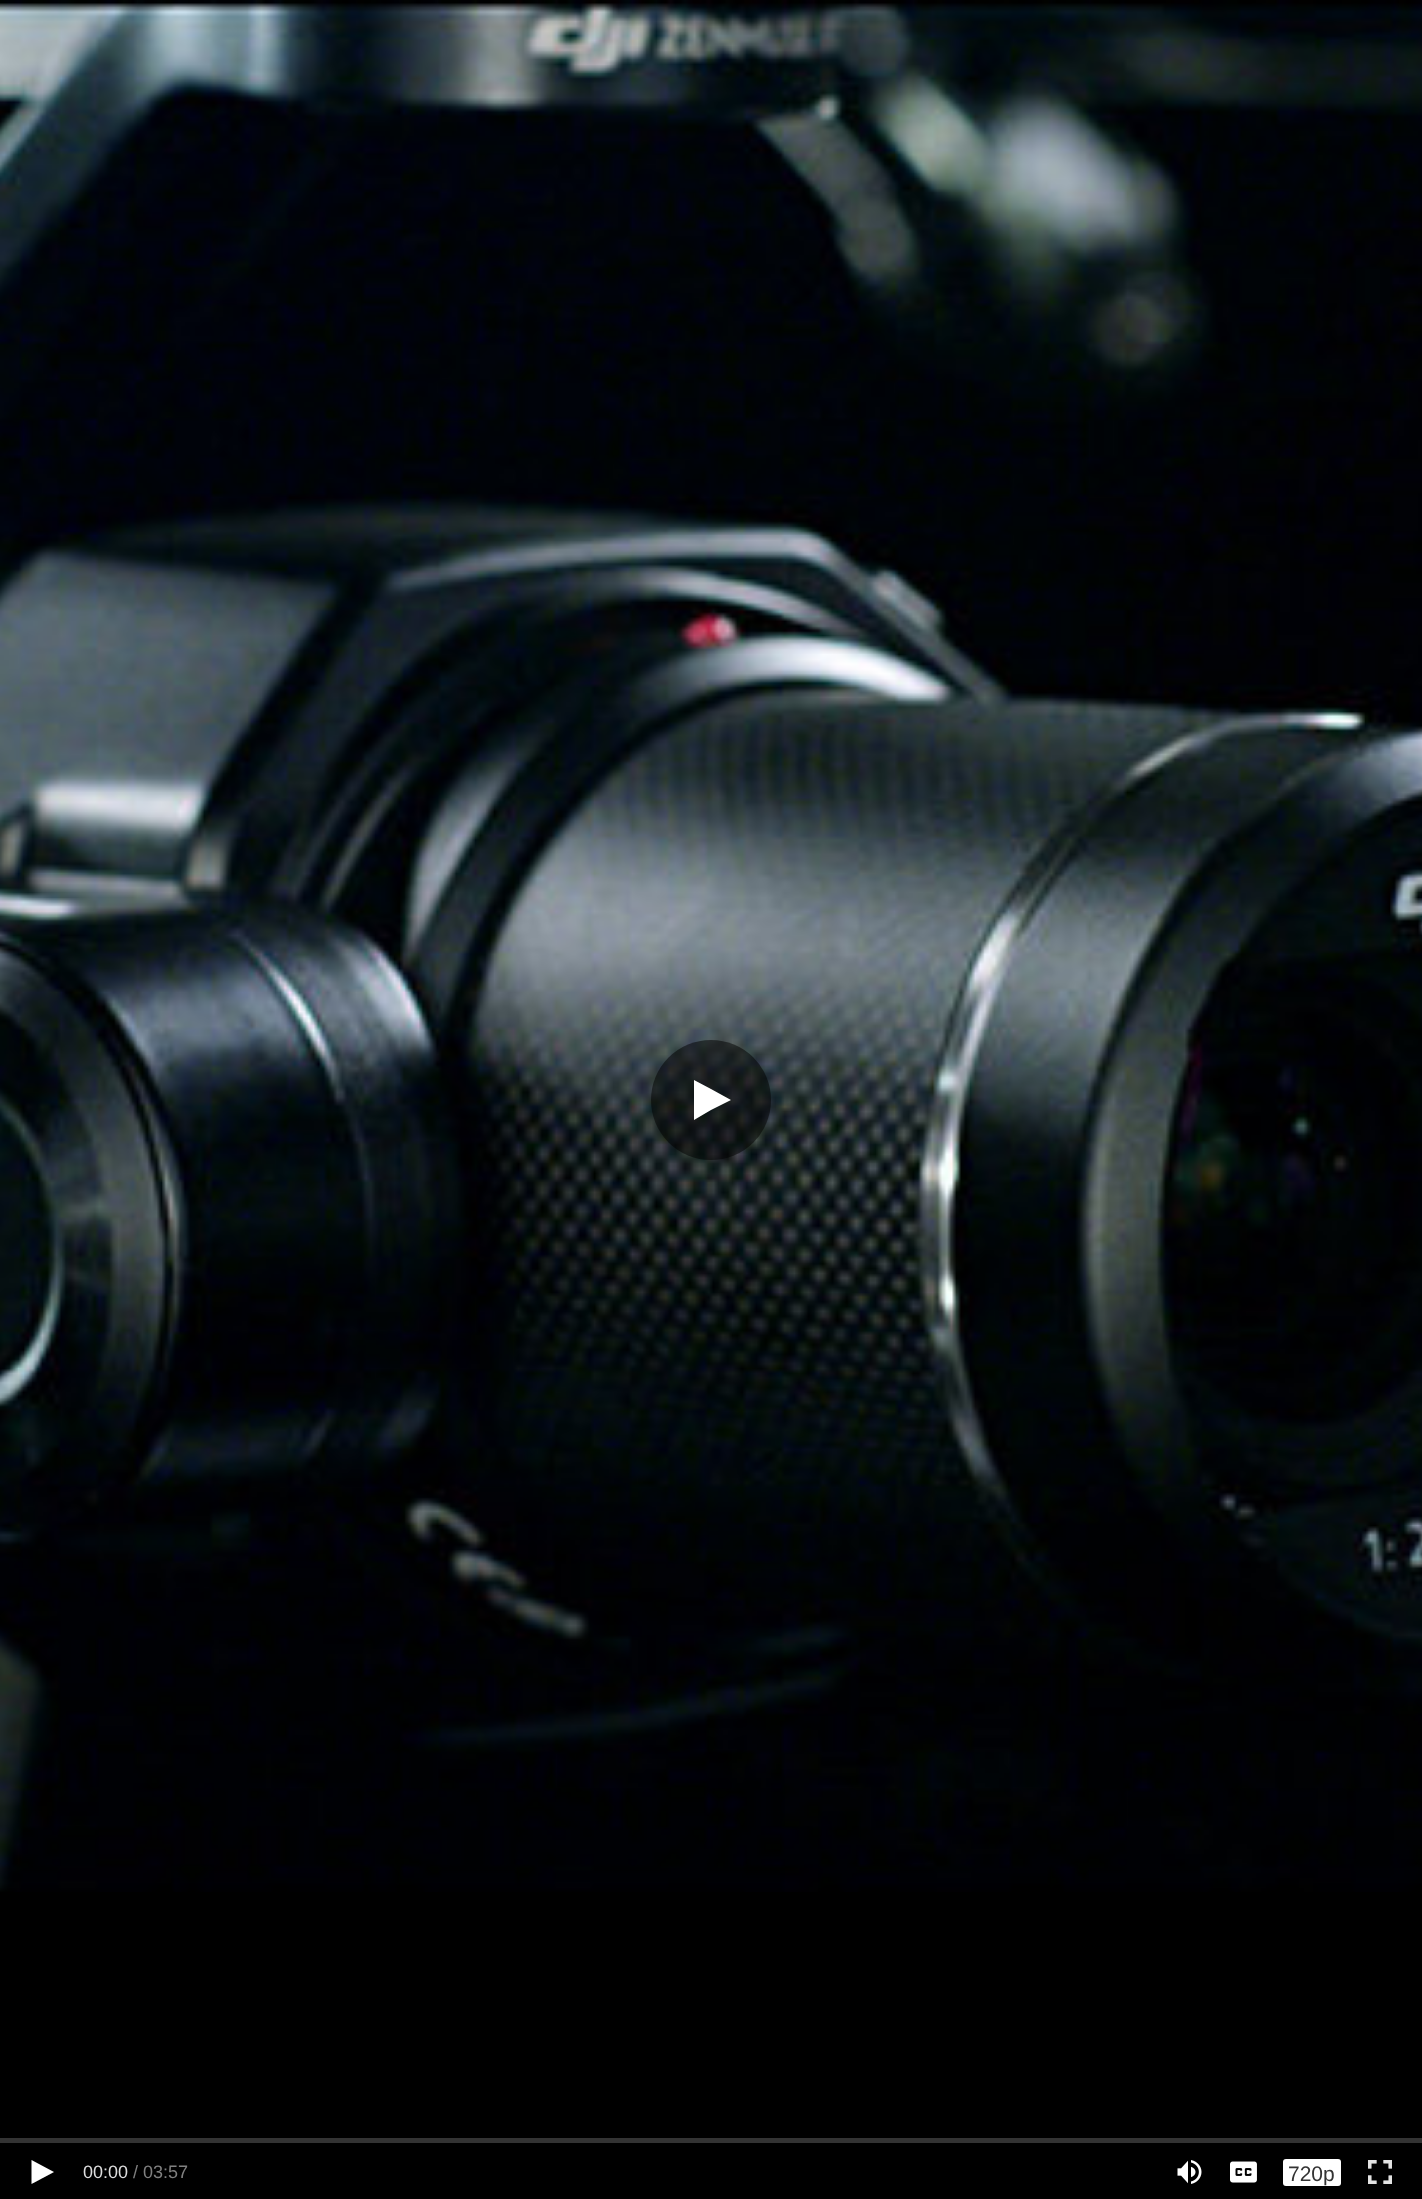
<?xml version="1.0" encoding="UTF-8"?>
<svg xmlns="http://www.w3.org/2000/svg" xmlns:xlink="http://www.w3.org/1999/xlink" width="1422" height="2199">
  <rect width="100%" height="100%" fill="#000000" />
  <image x="0" y="0" width="1422" height="1892" xlink:href="image1.png" />
  <circle cx="711" cy="1100" r="60" fill="#000000" fill-opacity="0.5" />
  <path d="M 694 1080 l 17 9 v 21 l -17 10 z m 17 9 l 20 11 l -20 10 z" fill="#ffffff" />
  <rect y="2138" width="1422" height="5" fill="#333333" />
  <image x="31" y="2160" width="23" height="24" xlink:href="image2.png" />
  <image x="1177" y="2160" width="25" height="24" xlink:href="image3.png" />
  <image x="1230" y="2161" width="27" height="22" xlink:href="image4.png" />
  <rect x="1283" y="2159" width="58" height="27" rx="3" fill="#ffffff" />
  <image x="1368" y="2160" width="24" height="24" xlink:href="image5.png" />
  <text x="83" y="2178" style="font-family: Liberation Sans; font-size: 18px; fill: #dededf">00:00</text>
  <text x="133" y="2178" style="font-family: Liberation Sans; font-size: 18px; fill: #808080">/ 03:57</text>
  <text x="1288" y="2181" style="font-family: Liberation Sans; font-size: 21px; fill: #333333">720p</text>
</svg>
